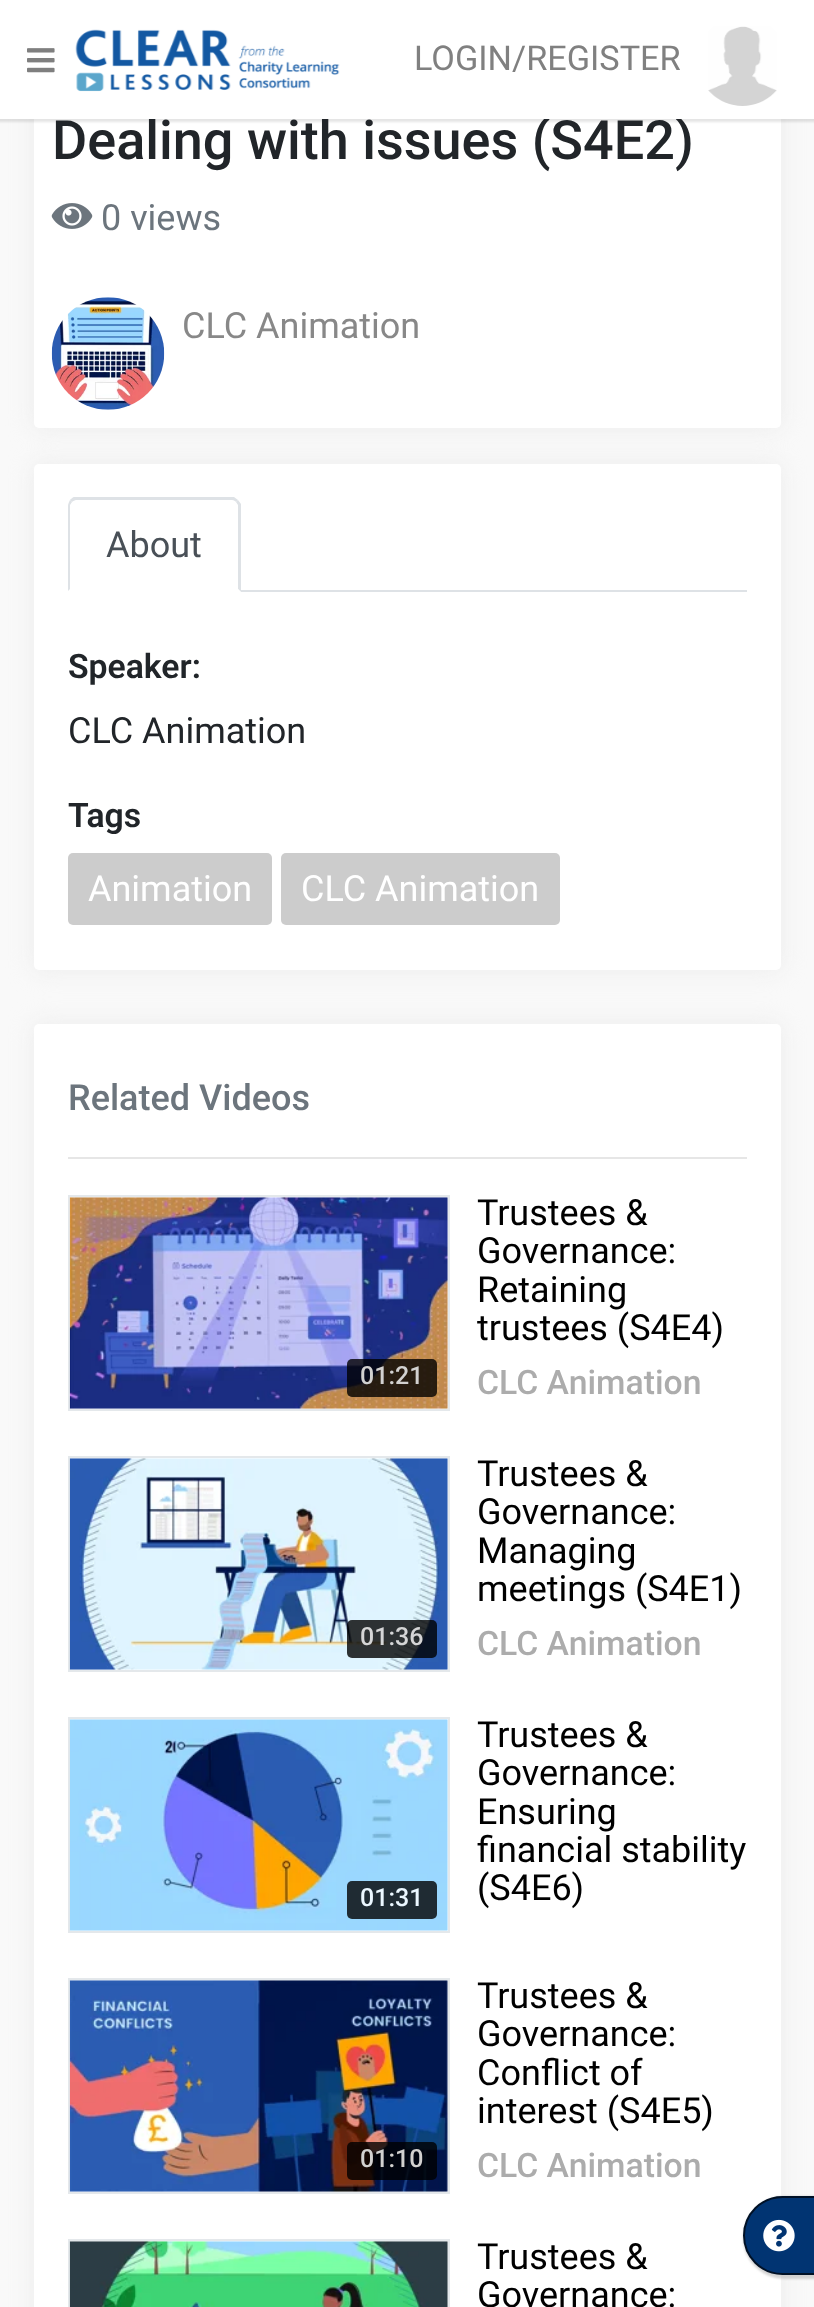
<?xml version="1.0" encoding="UTF-8"?>
<svg xmlns="http://www.w3.org/2000/svg" xmlns:xlink="http://www.w3.org/1999/xlink" width="814" height="2307">
  <rect width="100%" height="100%" fill="#f9f9f9" />
  <rect x="34" y="-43" width="747" height="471" rx="5" fill="#ececec" filter="blur(12.5px)" />
  <rect x="34" y="-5" width="747" height="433" rx="5" fill="#ffffff" />
  <rect x="-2" y="-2" width="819" height="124" fill="#000000" fill-opacity="0.1" filter="blur(1px)" />
  <image x="51" y="203" width="42" height="26" xlink:href="image4.png" />
  <image x="51" y="297" width="114" height="113" xlink:href="image5.png" />
  <rect x="34" y="464" width="747" height="506" rx="5" fill="#ececec" filter="blur(12.5px)" />
  <rect x="34" y="464" width="747" height="506" rx="5" fill="#ffffff" />
  <rect x="241" y="590" width="506" height="2" fill="#dee2e6" />
  <path d="M 76 500 c -1 0 -3 1 -4 2 l -2 -2 c 1 -1 3 -3 4 -3 h 160 l 4 3 l -2 2 c -1 -1 -2 -2 -4 -2 z" fill="#dee2e6" />
  <path d="M 238 500 l 3 4 v 88 l -3 -3 v -84 l -2 -3 z" fill="#dee2e6" />
  <path d="M 241 592 h -173 l 2 -3 v 1 h 168 v -1 z" fill="#ffffff" />
  <path d="M 68 591 v -85 c 0 -2 1 -4 2 -6 l 2 2 l -2 3 v 84 z" fill="#dee2e6" />
  <rect x="68" y="853" width="204" height="72" rx="5" fill="#cccccc" />
  <rect x="281" y="853" width="279" height="72" rx="5" fill="#cccccc" />
  <rect x="34" y="1024" width="747" height="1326" rx="5" fill="#ececec" filter="blur(12.5px)" />
  <rect x="34" y="1024" width="747" height="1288" rx="5" fill="#ffffff" />
  <rect x="68" y="1157" width="679" height="2" fill="#e6e6e6" />
  <rect x="69" y="1196" width="380" height="214" fill="none" stroke="#e4e8eb" stroke-width="2" />
  <image x="69" y="1197" width="379" height="212" xlink:href="image6.png" />
  <rect x="347" y="1359" width="90" height="38" rx="5" fill="#000000" fill-opacity="0.8" />
  <rect x="69" y="1457" width="380" height="214" fill="none" stroke="#e4e8eb" stroke-width="2" />
  <image x="69" y="1458" width="379" height="212" xlink:href="image7.png" />
  <rect x="347" y="1620" width="90" height="38" rx="5" fill="#000000" fill-opacity="0.8" />
  <rect x="69" y="1718" width="380" height="214" fill="none" stroke="#e4e8eb" stroke-width="2" />
  <image x="69" y="1719" width="379" height="212" xlink:href="image8.png" />
  <rect x="347" y="1881" width="90" height="38" rx="5" fill="#1f2b33" />
  <rect x="69" y="1979" width="380" height="214" fill="none" stroke="#e4e8eb" stroke-width="2" />
  <image x="69" y="1980" width="379" height="212" xlink:href="image9.png" />
  <rect x="347" y="2142" width="90" height="38" rx="5" fill="#000000" fill-opacity="0.8" />
  <rect x="69" y="2240" width="380" height="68" fill="none" stroke="#e4e8eb" stroke-width="2" />
  <image x="69" y="2241" width="379" height="66" xlink:href="image10.png" />
  <rect x="743" y="2196" width="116" height="83" rx="41.5" fill="#b8b8b8" fill-opacity="0.6" filter="blur(1px)" />
  <rect x="744" y="2197" width="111" height="77" rx="38.5" fill="#013472" stroke="#001126" stroke-width="2" />
  <image x="763" y="2219" width="32" height="33" xlink:href="image11.png" />
  <text x="52" y="159" style="font-family: Roboto; font-size: 54px; font-weight: 500; fill: #212529">Dealing with issues (S4E2)</text>
  <rect width="814" height="119" fill="#ffffff" />
  <image x="708" y="26" width="69" height="80" xlink:href="image3.png" />
  <text x="414" y="70" style="font-family: Roboto; font-size: 34.25px; fill: #808080">LOGIN/REGISTER</text>
  <image x="75" y="29" width="265" height="63" xlink:href="image2.png" />
  <image x="27" y="48" width="28" height="25" xlink:href="image1.png" />
  <text x="101" y="230" style="font-family: Roboto; font-size: 36px; fill: #6c757d">0 views</text>
  <text x="182" y="338" style="font-family: Roboto; font-size: 36px; fill: #888888">CLC Animation</text>
  <text x="106" y="557" style="font-family: Roboto; font-size: 36px; fill: #495057">About</text>
  <text x="68" y="678" style="font-family: Roboto; font-size: 33.75px; font-weight: 600; fill: #212529">Speaker:</text>
  <text x="68" y="743" style="font-family: Roboto; font-size: 36px; fill: #212529">CLC Animation</text>
  <text x="68" y="827" style="font-family: Roboto; font-size: 33.75px; font-weight: 600; fill: #212529">Tags</text>
  <text x="88" y="901" style="font-family: Roboto; font-size: 36px; fill: #ffffff">Animation</text>
  <text x="301" y="901" style="font-family: Roboto; font-size: 36px; fill: #ffffff">CLC Animation</text>
  <text x="68" y="1110" style="font-family: Roboto; font-size: 36px; font-weight: 500; fill: #6c757d">Related Videos</text>
  <text x="360" y="1384" style="font-family: Roboto; font-size: 25px; font-weight: 500; fill: #d2d1d0">01:21</text>
  <text x="477" y="1225" style="font-family: Roboto; font-size: 36px; fill: #000000">Trustees &amp;</text>
  <text x="477" y="1263" style="font-family: Roboto; font-size: 36px; fill: #000000">Governance:</text>
  <text x="477" y="1302" style="font-family: Roboto; font-size: 36px; fill: #000000">Retaining</text>
  <text x="477" y="1340" style="font-family: Roboto; font-size: 36px; fill: #000000">trustees (S4E4)</text>
  <text x="477" y="1394" style="font-family: Roboto; font-size: 33.75px; font-weight: 500; fill: #acacac">CLC Animation</text>
  <text x="360" y="1645" style="font-family: Roboto; font-size: 25px; font-weight: 500; fill: #d5d5d6">01:36</text>
  <text x="477" y="1486" style="font-family: Roboto; font-size: 36px; fill: #000000">Trustees &amp;</text>
  <text x="477" y="1524" style="font-family: Roboto; font-size: 36px; fill: #000000">Governance:</text>
  <text x="477" y="1563" style="font-family: Roboto; font-size: 36px; fill: #000000">Managing</text>
  <text x="477" y="1601" style="font-family: Roboto; font-size: 36px; fill: #000000">meetings (S4E1)</text>
  <text x="477" y="1655" style="font-family: Roboto; font-size: 33.75px; font-weight: 500; fill: #acacac">CLC Animation</text>
  <text x="360" y="1906" style="font-family: Roboto; font-size: 25px; font-weight: 500; fill: #ebf7ff">01:31</text>
  <text x="477" y="1747" style="font-family: Roboto; font-size: 36px; fill: #000000">Trustees &amp;</text>
  <text x="477" y="1785" style="font-family: Roboto; font-size: 36px; fill: #000000">Governance:</text>
  <text x="477" y="1824" style="font-family: Roboto; font-size: 36px; fill: #000000">Ensuring</text>
  <text x="477" y="1862" style="font-family: Roboto; font-size: 36px; fill: #000000">financial stability</text>
  <text x="477" y="1900" style="font-family: Roboto; font-size: 36px; fill: #000000">(S4E6)</text>
  <text x="360" y="2167" style="font-family: Roboto; font-size: 25px; font-weight: 500; fill: #d2d1d0">01:10</text>
  <text x="477" y="2008" style="font-family: Roboto; font-size: 36px; fill: #000000">Trustees &amp;</text>
  <text x="477" y="2046" style="font-family: Roboto; font-size: 36px; fill: #000000">Governance:</text>
  <text x="477" y="2085" style="font-family: Roboto; font-size: 36px; fill: #000000">Conflict of</text>
  <text x="477" y="2123" style="font-family: Roboto; font-size: 36px; fill: #000000">interest (S4E5)</text>
  <text x="477" y="2177" style="font-family: Roboto; font-size: 33.75px; font-weight: 500; fill: #acacac">CLC Animation</text>
  <text x="477" y="2269" style="font-family: Roboto; font-size: 36px; fill: #000000">Trustees &amp;</text>
  <text x="477" y="2307" style="font-family: Roboto; font-size: 36px; fill: #000000">Governance:</text>
</svg>
